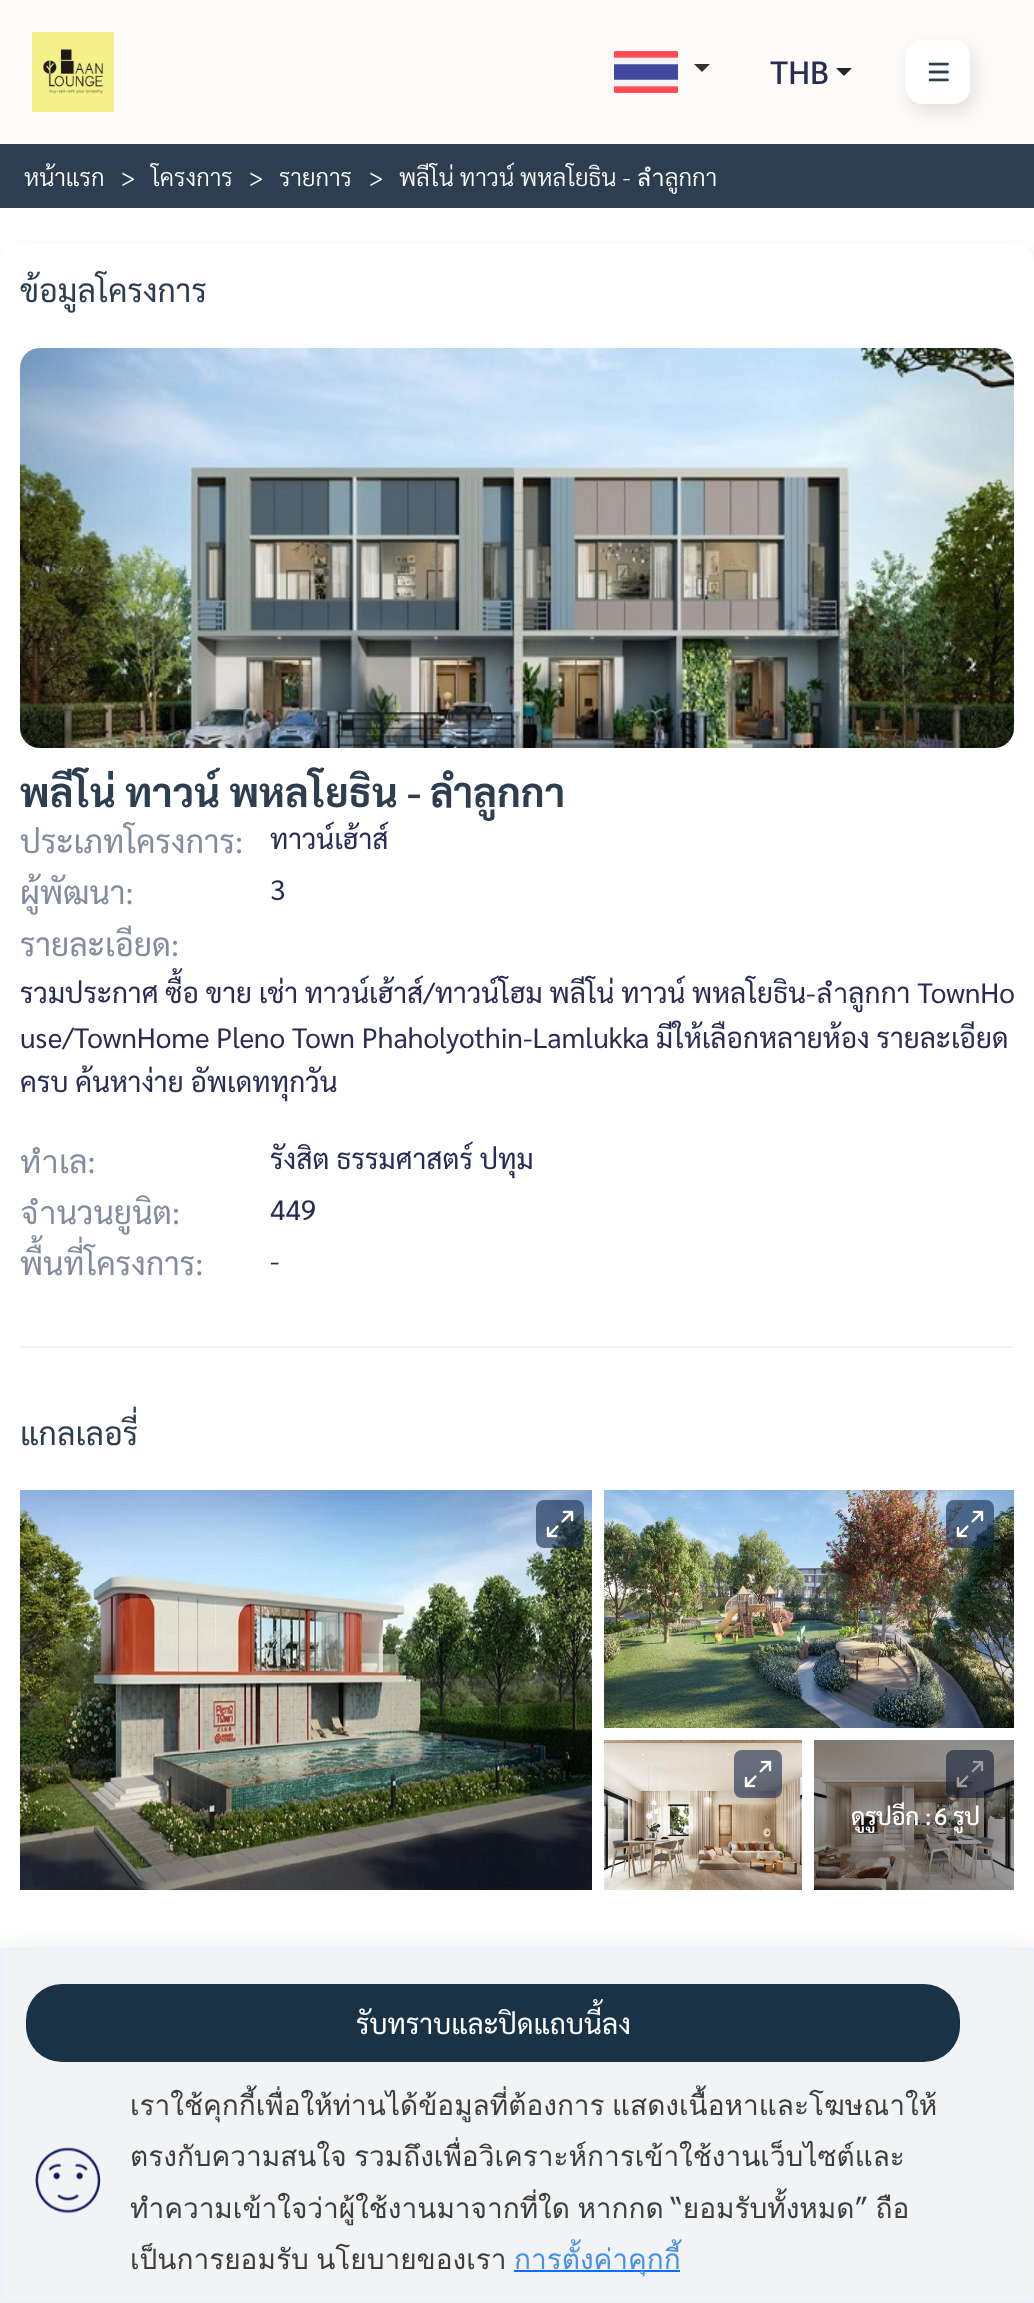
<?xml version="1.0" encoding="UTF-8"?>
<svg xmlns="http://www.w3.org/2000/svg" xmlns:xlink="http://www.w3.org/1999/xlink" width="1034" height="2303">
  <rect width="100%" height="100%" fill="#ffffff" />
  <rect width="1034" height="144" fill="#fcfbf9" />
  <image x="32" y="32" width="82" height="80" xlink:href="image1.png" />
  <image x="614" y="51" width="64" height="42" xlink:href="image2.png" />
  <path d="M 694 64 h 16 l -8 8 z" fill="#333333" />
  <path d="M 836 68 h 16 l -8 8 z" fill="#212529" />
  <rect x="910" y="48" width="64" height="64" rx="16" fill="#0a0a10" fill-opacity="0.1" filter="blur(8px)" />
  <rect x="906" y="40" width="64" height="64" rx="16" fill="#ffffff" />
  <image x="928" y="62" width="21" height="20" xlink:href="image3.png" />
  <rect y="144" width="1034" height="64" fill="#2d3e50" />
  <rect x="4" y="252" width="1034" height="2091" rx="16" fill="#0a0a10" fill-opacity="0.1" filter="blur(8px)" />
  <rect y="244" width="1034" height="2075" rx="16" fill="#ffffff" />
  <rect x="20" y="1346" width="994" height="2" fill="#f2f2f2" />
  <image x="20" y="348" width="994" height="400" xlink:href="image4.png" />
  <image x="20" y="1490" width="572" height="400" xlink:href="image5.png" />
  <image x="536" y="1500" width="48" height="48" xlink:href="image6.png" />
  <image x="604" y="1490" width="410" height="238" xlink:href="image7.png" />
  <image x="946" y="1500" width="48" height="48" xlink:href="image8.png" />
  <image x="604" y="1740" width="198" height="150" xlink:href="image9.png" />
  <image x="734" y="1750" width="48" height="48" xlink:href="image10.png" />
  <image x="814" y="1740" width="200" height="150" xlink:href="image11.png" />
  <image x="946" y="1750" width="48" height="48" xlink:href="image12.png" />
  <rect x="4" y="1956" width="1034" height="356" fill="#384b6c" fill-opacity="0.2" filter="blur(16px)" />
  <rect x="1" y="1949" width="1032" height="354" fill="#f1f3f4" stroke="#ebf2fe" stroke-width="2" />
  <rect x="26" y="1984" width="934" height="78" rx="36" fill="#193245" />
  <image x="35" y="2147" width="66" height="67" xlink:href="image13.png" />
  <rect x="514" y="2270" width="166" height="2" fill="#0d6efd" />
  <text x="770" y="84" style="font-family: Sarabun; font-size: 32px; font-weight: 500; fill: #292b54">THB</text>
  <text x="24" y="186" style="font-family: Sarabun; font-size: 24px; font-weight: 300; fill: #ffffff">หน้าแรก</text>
  <text x="121" y="186" style="font-family: Sarabun; font-size: 24px; font-weight: 300; fill: #ffffff">&gt;</text>
  <text x="151" y="186" style="font-family: Sarabun; font-size: 24px; font-weight: 300; fill: #ffffff">โครงการ</text>
  <text x="249" y="186" style="font-family: Sarabun; font-size: 24px; font-weight: 300; fill: #ffffff">&gt;</text>
  <text x="279" y="186" style="font-family: Sarabun; font-size: 24px; font-weight: 300; fill: #ffffff">รายการ</text>
  <text x="369" y="186" style="font-family: Sarabun; font-size: 24px; font-weight: 300; fill: #ffffff">&gt;</text>
  <text x="399" y="186" style="font-family: Sarabun; font-size: 24px; font-weight: 300; fill: #ffffff">พลีโน่ ทาวน์ พหลโยธิน - ลำลูกกา</text>
  <text x="20" y="302" style="font-family: Sarabun; font-size: 32px; fill: #2d3e50">ข้อมูลโครงการ</text>
  <text x="20" y="807" style="font-family: Sarabun; font-size: 40px; font-weight: bold; fill: #2d3e50">พลีโน่ ทาวน์ พหลโยธิน - ลำลูกกา</text>
  <text x="20" y="853" style="font-family: Sarabun; font-size: 32px; fill: #828c9e">ประเภทโครงการ:</text>
  <text x="270" y="849" style="font-family: Sarabun; font-size: 28px; fill: #292b54">ทาวน์เฮ้าส์</text>
  <text x="20" y="904" style="font-family: Sarabun; font-size: 32px; fill: #828c9e">ผู้พัฒนา:</text>
  <text x="270" y="900" style="font-family: Sarabun; font-size: 28px; fill: #292b54">3</text>
  <text x="20" y="956" style="font-family: Sarabun; font-size: 32px; fill: #828c9e">รายละเอียด:</text>
  <text x="20" y="1003" style="font-family: Sarabun; font-size: 28px; fill: #292b54">รวมประกาศ ซื้อ ขาย เช่า ทาวน์เฮ้าส์/ทาวน์โฮม พลีโน่ ทาวน์ พหลโยธิน-ลำลูกกา TownHo</text>
  <text x="20" y="1048" style="font-family: Sarabun; font-size: 28px; fill: #292b54">use/TownHome Pleno Town Phaholyothin-Lamlukka มีให้เลือกหลายห้อง รายละเอียด</text>
  <text x="20" y="1092" style="font-family: Sarabun; font-size: 28px; fill: #292b54">ครบ ค้นหาง่าย อัพเดททุกวัน</text>
  <text x="20" y="1173" style="font-family: Sarabun; font-size: 32px; fill: #828c9e">ทำเล:</text>
  <text x="270" y="1169" style="font-family: Sarabun; font-size: 28px; fill: #292b54">รังสิต ธรรมศาสตร์ ปทุม</text>
  <text x="20" y="1224" style="font-family: Sarabun; font-size: 32px; fill: #828c9e">จำนวนยูนิต:</text>
  <text x="270" y="1220" style="font-family: Sarabun; font-size: 28px; fill: #292b54">449</text>
  <text x="20" y="1275" style="font-family: Sarabun; font-size: 32px; fill: #828c9e">พื้นที่โครงการ:</text>
  <text x="270" y="1271" style="font-family: Sarabun; font-size: 28px; fill: #292b54">-</text>
  <text x="20" y="1445" style="font-family: Sarabun; font-size: 32px; fill: #2d3e50">แกลเลอรี่</text>
  <text x="851" y="1825" word-spacing="1" style="font-family: Sarabun; font-size: 24px; font-weight: 500; letter-spacing: -0.5px; fill: #ffffff">ดูรูปอีก :</text>
  <text x="934" y="1825" word-spacing="1" style="font-family: Sarabun; font-size: 24px; font-weight: 500; letter-spacing: -0.5px; fill: #ffffff">6 รูป</text>
  <text x="356" y="2034" style="font-family: Sarabun; font-size: 28px; fill: #ffffff">รับทราบและปิดแถบนี้ลง</text>
  <text x="130" y="2115" word-spacing="-2" style="font-family: Loma; font-size: 28px; fill: #3d3d3d">เราใช้คุกกี้เพื่อให้ท่านได้ข้อมูลที่ต้องการ แสดงเนื้อหาและโฆษณาให้</text>
  <text x="130" y="2166" style="font-family: Loma; font-size: 28px; fill: #3d3d3d">ตรงกับความสนใจ</text>
  <text x="354" y="2166" style="font-family: Loma; font-size: 28px; fill: #3d3d3d">รวมถึงเพื่อวิเคราะห์การเข้าใช้งานเว็บไซต์และ</text>
  <text x="130" y="2218" word-spacing="-2" style="font-family: Loma; font-size: 28px; fill: #3d3d3d">ทำความเข้าใจว่าผู้ใช้งานมาจากที่ใด หากกด “ยอมรับทั้งหมด” ถือ</text>
  <text x="130" y="2269" word-spacing="-2" style="font-family: Loma; font-size: 28px; fill: #3d3d3d">เป็นการยอมรับ นโยบายของเรา</text>
  <text x="514" y="2269" style="font-family: Loma; font-size: 28px; fill: #4a90e2">การตั้งค่าคุกกี้</text>
</svg>
